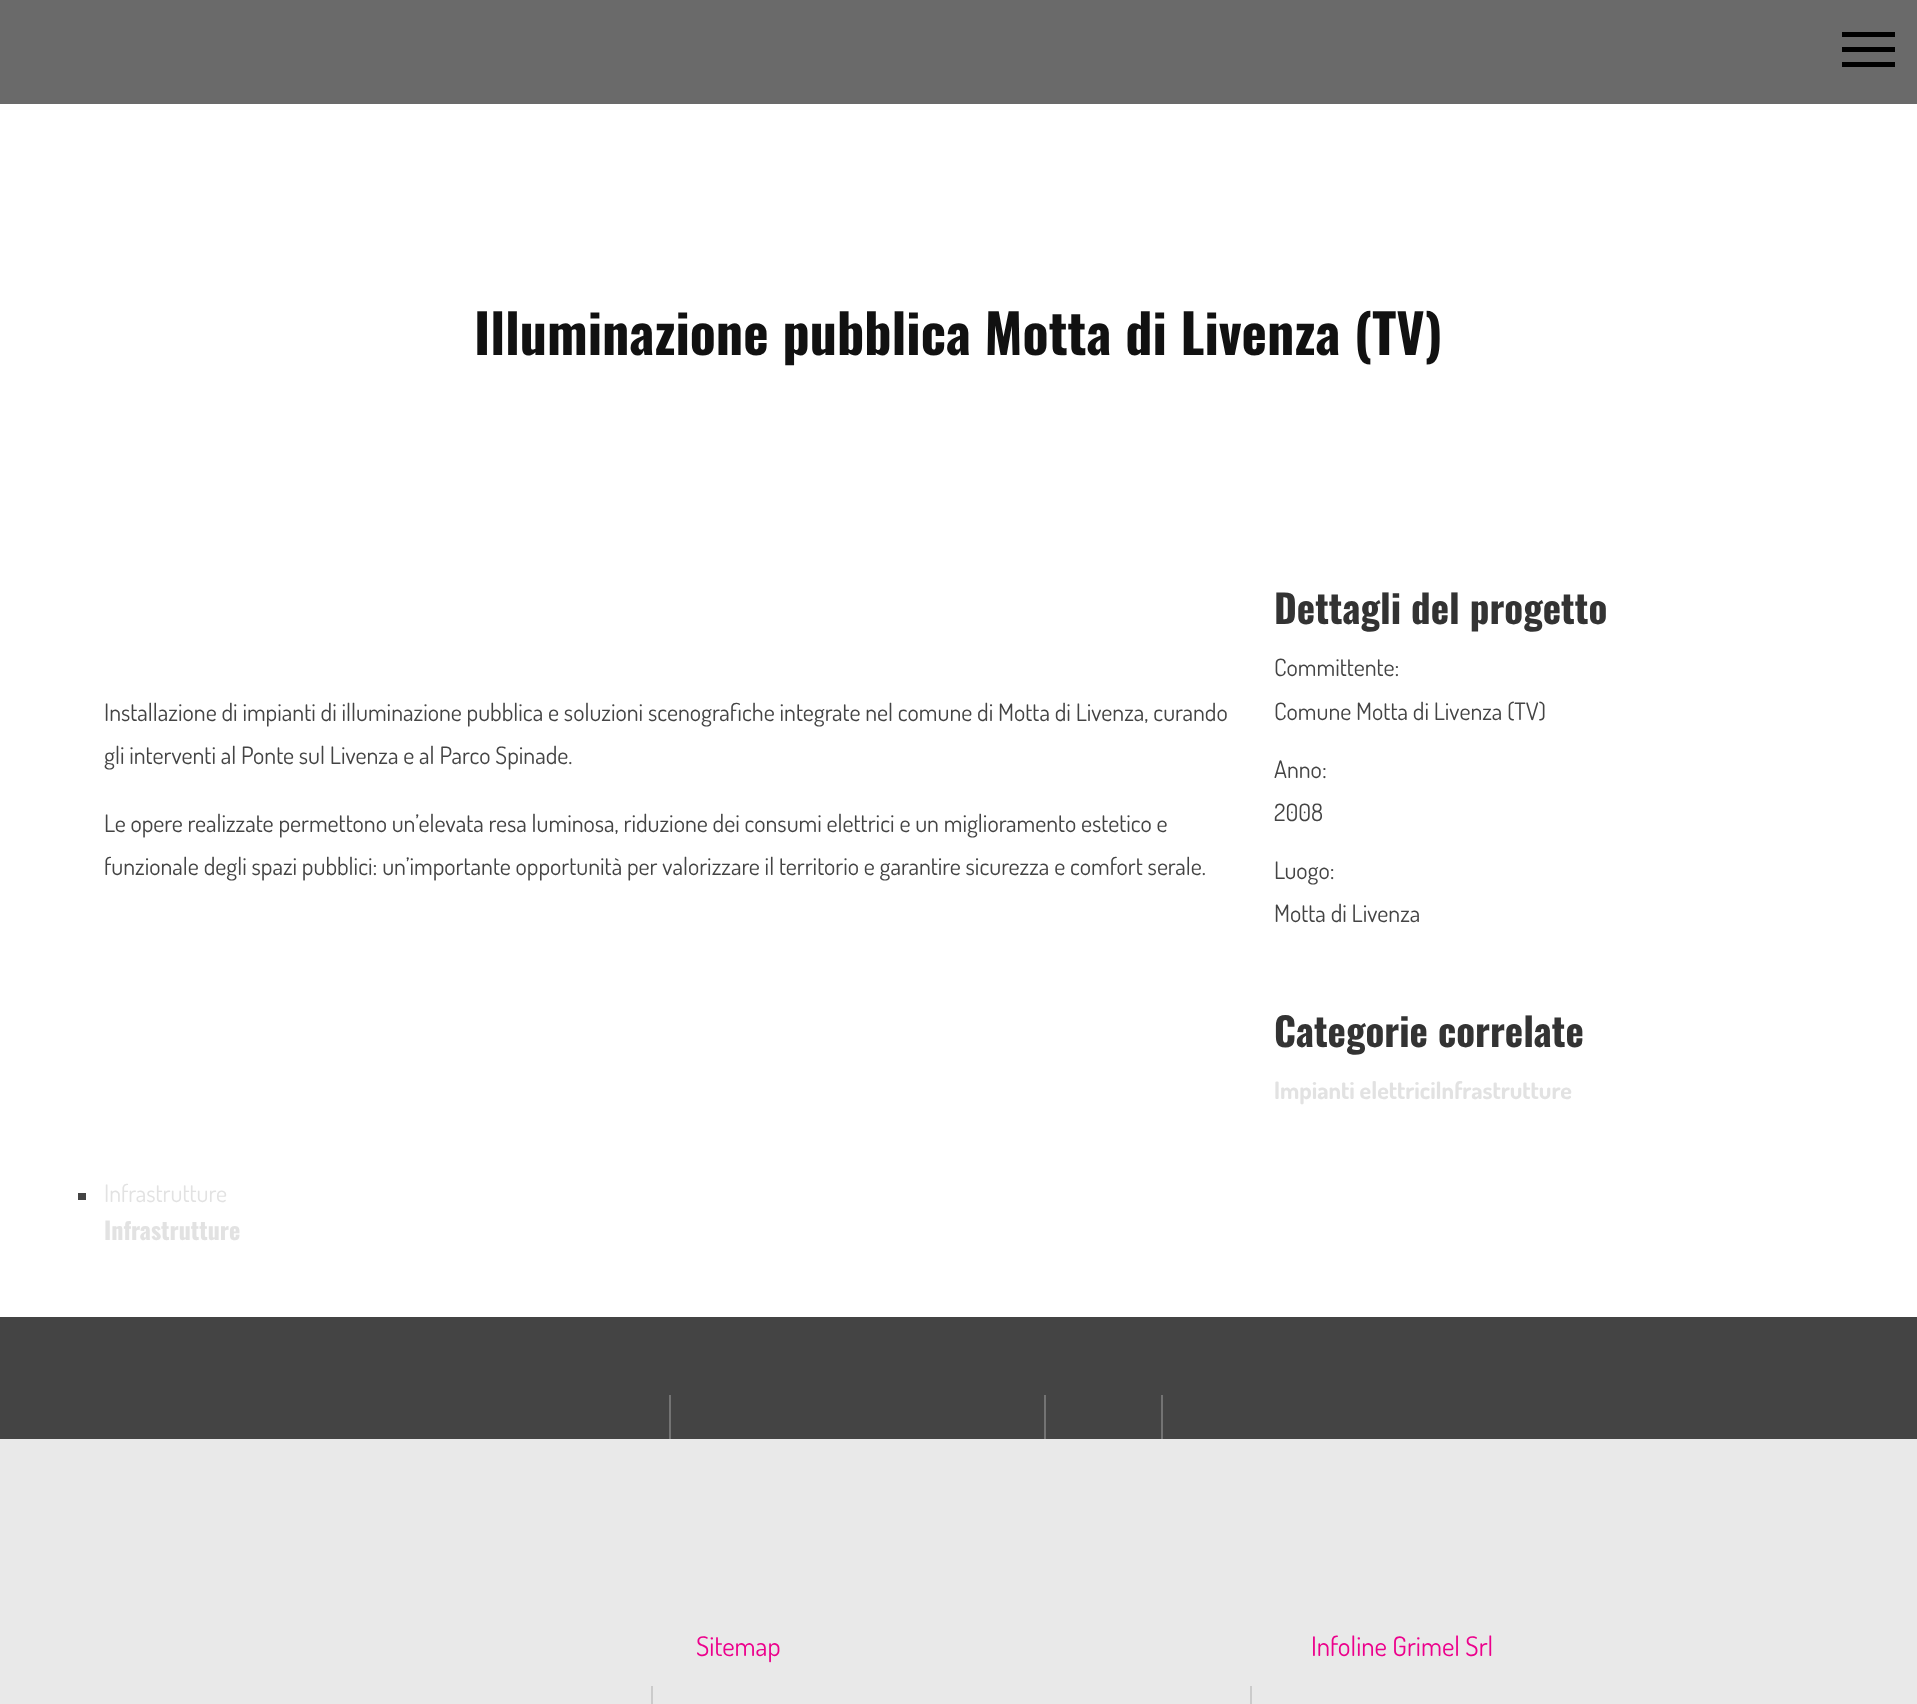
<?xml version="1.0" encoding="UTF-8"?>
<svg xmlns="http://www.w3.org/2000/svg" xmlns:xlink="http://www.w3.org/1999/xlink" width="1917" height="1704">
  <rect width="100%" height="100%" fill="#ffffff" />
  <rect width="1917" height="104" fill="#6a6a6a" />
  <rect x="1842" y="32" width="53" height="5" fill="#000000" />
  <rect x="1842" y="47" width="53" height="5" fill="#000000" />
  <rect x="1842" y="62" width="53" height="5" fill="#000000" />
  <rect x="78" y="1193" width="8" height="7" fill="#444444" />
  <rect y="1317" width="1917" height="122" fill="#444444" />
  <rect x="669" y="1395" width="2" height="44" fill="#737373" />
  <rect x="1044" y="1395" width="2" height="44" fill="#737373" />
  <rect x="1161" y="1395" width="2" height="44" fill="#737373" />
  <rect y="1439" width="1917" height="265" fill="#e9e9e9" />
  <rect x="651" y="1686" width="2" height="18" fill="#cbcbcb" />
  <rect x="1250" y="1686" width="2" height="18" fill="#cbcbcb" />
  <text x="474" y="355" style="font-family: Oswald; font-size: 54px; font-weight: bold; fill: #111111">Illuminazione pubblica Motta di Livenza (TV)</text>
  <text x="104" y="721" style="font-family: Dosis; font-size: 24px; fill: #444444">Installazione di impianti di illuminazione pubblica e soluzioni scenografiche integrate nel comune di Motta di Livenza, curando</text>
  <text x="104" y="764" style="font-family: Dosis; font-size: 24px; fill: #444444">gli interventi al Ponte sul Livenza e al Parco Spinade.</text>
  <text x="104" y="832" style="font-family: Dosis; font-size: 24px; fill: #444444">Le opere realizzate permettono un’elevata resa luminosa, riduzione dei consumi elettrici e un miglioramento estetico e</text>
  <text x="104" y="875" style="font-family: Dosis; font-size: 24px; fill: #444444">funzionale degli spazi pubblici: un’importante opportunità per valorizzare il territorio e garantire sicurezza e comfort serale.</text>
  <text x="1274" y="624" style="font-family: Oswald; font-size: 39px; font-weight: bold; fill: #333333">Dettagli del progetto</text>
  <text x="1274" y="676" style="font-family: Dosis; font-size: 24px; fill: #444444">Committente:</text>
  <text x="1274" y="720" style="font-family: Dosis; font-size: 24px; fill: #444444">Comune Motta di Livenza (TV)</text>
  <text x="1274" y="778" style="font-family: Dosis; font-size: 24px; fill: #444444">Anno:</text>
  <text x="1274" y="821" style="font-family: Dosis; font-size: 24px; fill: #444444">2008</text>
  <text x="1274" y="879" style="font-family: Dosis; font-size: 24px; fill: #444444">Luogo:</text>
  <text x="1274" y="922" style="font-family: Dosis; font-size: 24px; fill: #444444">Motta di Livenza</text>
  <text x="1274" y="1047" style="font-family: Oswald; font-size: 39px; font-weight: bold; fill: #333333">Categorie correlate</text>
  <text x="1274" y="1099" style="font-family: Dosis; font-size: 24px; font-weight: bold; fill: #e2e2e2">Impianti elettriciInfrastrutture</text>
  <text x="104" y="1202" style="font-family: Dosis; font-size: 24px; fill: #e2e2e2">Infrastrutture</text>
  <text x="104" y="1240" style="font-family: Oswald; font-size: 24px; font-weight: bold; fill: #e2e2e2">Infrastrutture</text>
  <text x="696" y="1656" style="font-family: Dosis; font-size: 27px; fill: #ec008c">Sitemap</text>
  <text x="1311" y="1656" style="font-family: Dosis; font-size: 27px; fill: #ec008c">Infoline Grimel Srl</text>
</svg>
